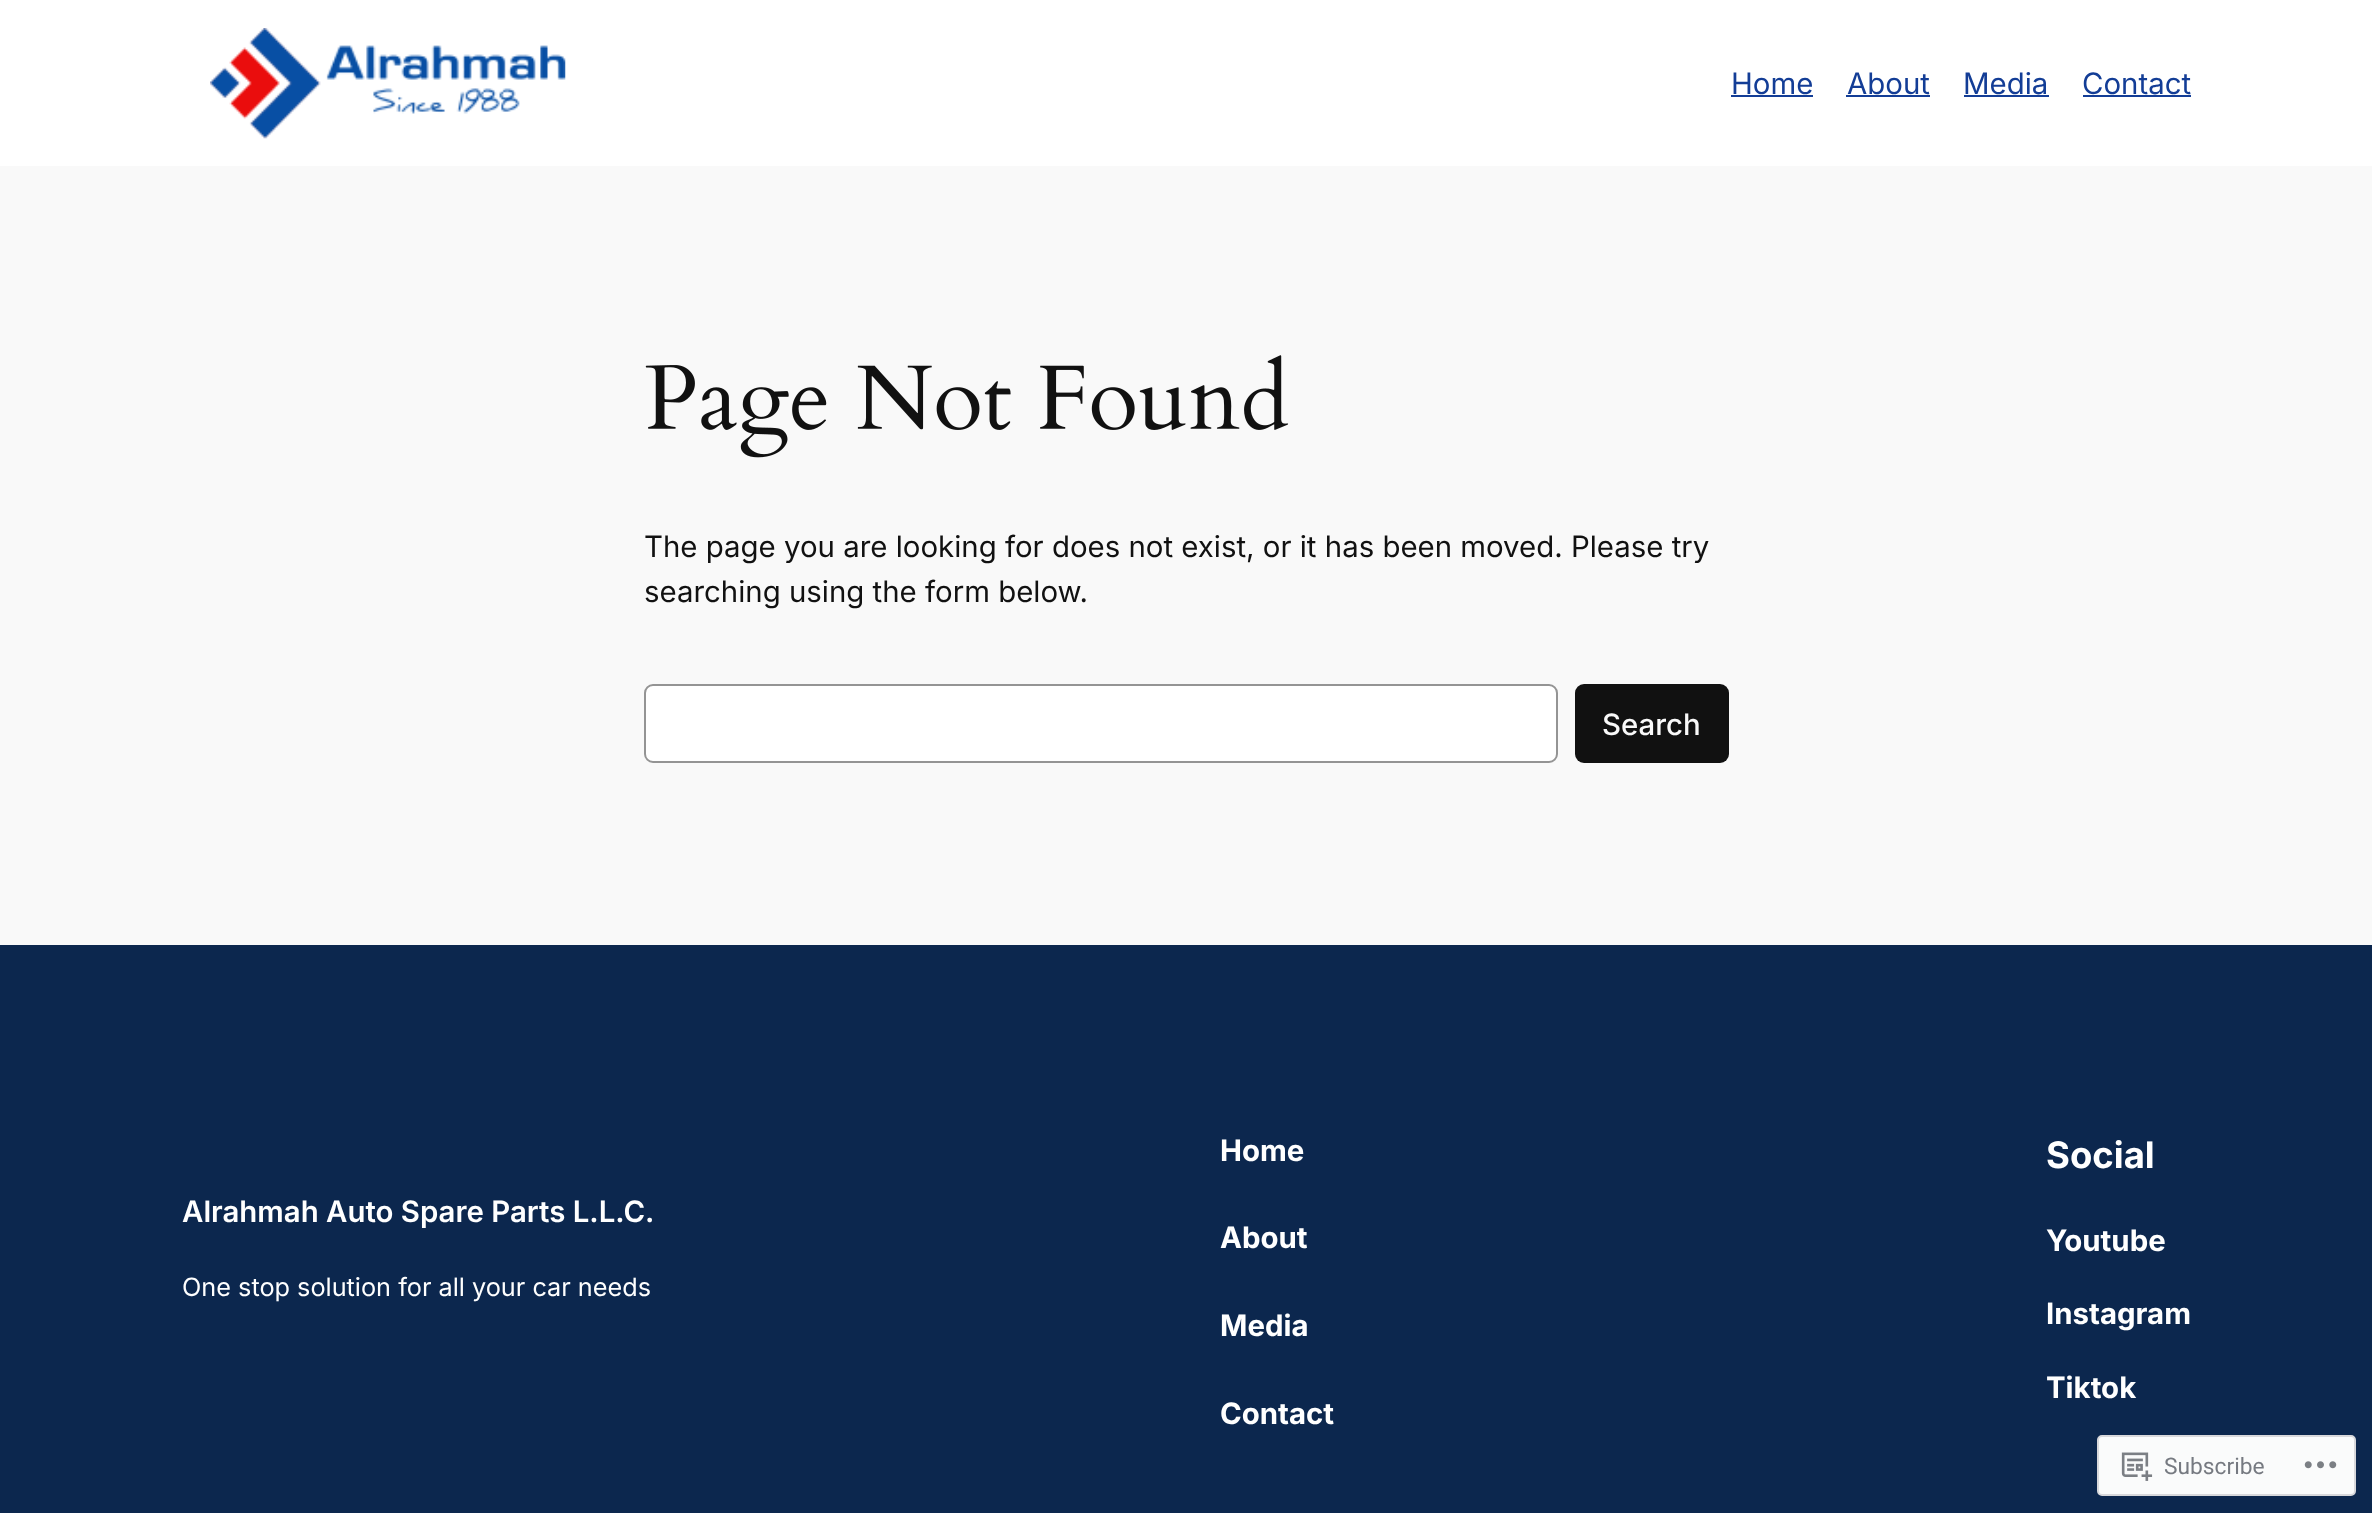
<?xml version="1.0" encoding="UTF-8"?>
<svg xmlns="http://www.w3.org/2000/svg" xmlns:xlink="http://www.w3.org/1999/xlink" width="2372" height="1513">
  <rect width="100%" height="100%" fill="#f9f9f9" />
  <rect width="2372" height="166" fill="#ffffff" />
  <image x="210" y="28" width="356" height="111" xlink:href="image1.png" />
  <rect x="1731" y="95" width="82" height="2" fill="#133d96" />
  <rect x="1846" y="95" width="84" height="2" fill="#133d96" />
  <rect x="1964" y="95" width="85" height="2" fill="#133d96" />
  <rect x="2083" y="95" width="108" height="2" fill="#133d96" />
  <image x="645" y="355" width="644" height="103" xlink:href="image2.png" />
  <rect x="645" y="685" width="912" height="77" rx="8" fill="#ffffff" stroke="#949494" stroke-width="2" />
  <rect x="1575" y="684" width="154" height="79" rx="9" fill="#111111" />
  <rect y="945" width="2372" height="568" fill="#0c274e" />
  <rect x="2098" y="1436" width="257" height="59" rx="4" fill="#fafbfb" stroke="#d8d8db" stroke-width="2" />
  <image x="2121" y="1452" width="32" height="29" xlink:href="image3.png" />
  <image x="2304" y="1461" width="33" height="8" xlink:href="image4.png" />
  <text x="1731" y="94" style="font-family: Inter; font-size: 29.4px; fill: #133d96">Home</text>
  <text x="1847" y="94" style="font-family: Inter; font-size: 29.4px; fill: #133d96">About</text>
  <text x="1963" y="94" style="font-family: Inter; font-size: 29.4px; fill: #133d96">Media</text>
  <text x="2082" y="94" style="font-family: Inter; font-size: 29.4px; fill: #133d96">Contact</text>
  <text x="644" y="557" style="font-family: Inter; font-size: 29.4px; fill: #111111">The page you are looking for does not exist, or it has been moved. Please try</text>
  <text x="644" y="602" style="font-family: Inter; font-size: 29.4px; fill: #111111">searching using the form below.</text>
  <text x="1602" y="735" style="font-family: Inter; font-size: 29.4px; font-weight: 500; fill: #f9f9f9">Search</text>
  <text x="182" y="1222" style="font-family: Inter; font-size: 29.4px; font-weight: 600; fill: #ffffff">Alrahmah Auto Spare Parts L.L.C.</text>
  <text x="182" y="1296" style="font-family: Inter; font-size: 25.25px; fill: #ffffff">One stop solution for all your car needs</text>
  <text x="1220" y="1161" style="font-family: Inter; font-size: 29.4px; font-weight: bold; fill: #ffffff">Home</text>
  <text x="1220" y="1248" style="font-family: Inter; font-size: 29.4px; font-weight: bold; fill: #ffffff">About</text>
  <text x="1220" y="1336" style="font-family: Inter; font-size: 29.4px; font-weight: bold; fill: #ffffff">Media</text>
  <text x="1220" y="1424" style="font-family: Inter; font-size: 29.4px; font-weight: bold; fill: #ffffff">Contact</text>
  <text x="2046" y="1168" style="font-family: Inter; font-size: 36.5px; font-weight: bold; fill: #ffffff">Social</text>
  <text x="2046" y="1251" style="font-family: Inter; font-size: 29.4px; font-weight: bold; fill: #ffffff">Youtube</text>
  <text x="2046" y="1324" style="font-family: Inter; font-size: 29.4px; font-weight: bold; fill: #ffffff">Instagram</text>
  <text x="2046" y="1398" style="font-family: Inter; font-size: 29.4px; font-weight: bold; fill: #ffffff">Tiktok</text>
  <text x="2164" y="1474" style="font-family: Roboto; font-size: 22.75px; fill: #767a81">Subscribe</text>
</svg>
